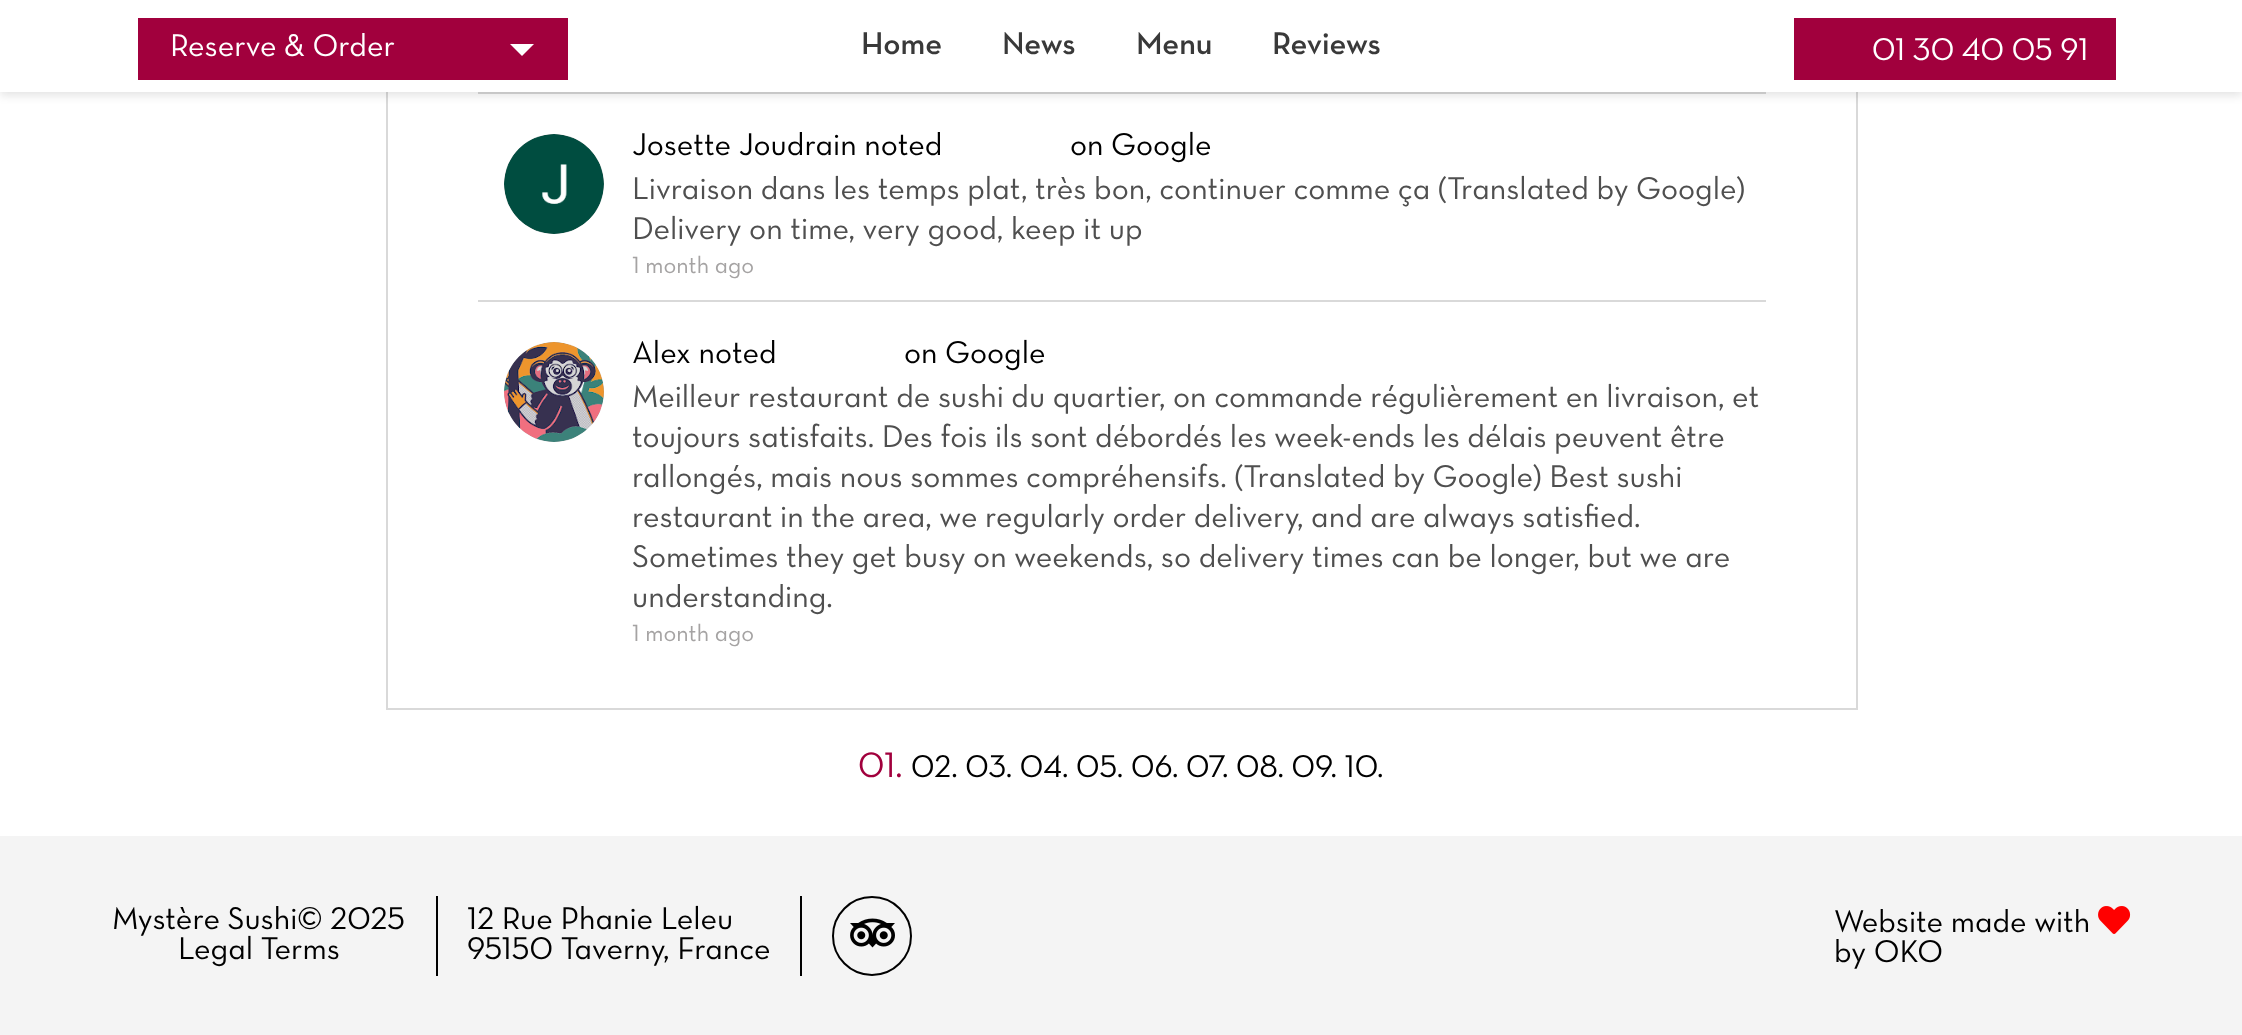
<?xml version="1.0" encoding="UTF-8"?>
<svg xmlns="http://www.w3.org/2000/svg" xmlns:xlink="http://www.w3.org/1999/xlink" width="2242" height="1035">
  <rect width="100%" height="100%" fill="#ffffff" />
  <rect x="387" y="-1" width="1470" height="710" fill="none" stroke="#d9d9d9" stroke-width="2" />
  <rect x="478" y="92" width="1288" height="2" fill="#d9d9d9" />
  <rect y="4" width="2242" height="92" fill="#000000" fill-opacity="0.1" filter="blur(4px)" />
  <rect width="2242" height="92" fill="#ffffff" />
  <rect x="138" y="18" width="430" height="62" fill="#a1003d" />
  <path d="M 510 44 h 24 l -12 12 z" fill="#ffffff" />
  <rect x="1794" y="18" width="322" height="62" fill="#a1003d" />
  <rect x="478" y="300" width="1288" height="2" fill="#d9d9d9" />
  <image x="504" y="134" width="100" height="100" xlink:href="image1.png" />
  <image x="504" y="342" width="100" height="100" xlink:href="image2.png" />
  <rect y="836" width="2242" height="199" fill="#f4f4f4" />
  <rect x="436" y="896" width="2" height="80" fill="#000000" />
  <rect x="800" y="896" width="2" height="80" fill="#000000" />
  <circle cx="872" cy="936" r="39" fill="none" stroke="#000000" stroke-width="2" />
  <image x="850" y="918" width="45" height="30" xlink:href="image3.png" />
  <image x="2098" y="906" width="33" height="28" xlink:href="image4.png" />
  <text x="170" y="56" style="font-family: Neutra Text; font-size: 32px; fill: #ffffff">Reserve &amp; Order</text>
  <text x="861" y="54" style="font-family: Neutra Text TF; font-size: 32px; font-weight: 500; fill: #393939">Home</text>
  <text x="1002" y="54" style="font-family: Neutra Text TF; font-size: 32px; font-weight: 500; fill: #393939">News</text>
  <text x="1136" y="54" style="font-family: Neutra Text TF; font-size: 32px; font-weight: 500; fill: #393939">Menu</text>
  <text x="1272" y="54" style="font-family: Neutra Text TF; font-size: 32px; font-weight: 500; fill: #393939">Reviews</text>
  <text x="1872" y="60" style="font-family: Neutra Text; font-size: 32px; fill: #ffffff">01 30 40 05 91</text>
  <text x="632" y="155" style="font-family: Neutra Text; font-size: 32px; fill: #000000">Josette Joudrain noted</text>
  <text x="1070" y="155" style="font-family: Neutra Text; font-size: 32px; fill: #000000">on Google</text>
  <text x="632" y="199" style="font-family: Neutra Text; font-size: 32px; fill: #4f4f4f">Livraison dans les temps plat, très bon, continuer comme ça (Translated by Google)</text>
  <text x="632" y="239" style="font-family: Neutra Text; font-size: 32px; fill: #4f4f4f">Delivery on time, very good, keep it up</text>
  <text x="632" y="273" style="font-family: Neutra Text; font-size: 24px; fill: #a5a3a3">1 month ago</text>
  <text x="632" y="363" style="font-family: Neutra Text; font-size: 32px; fill: #000000">Alex noted</text>
  <text x="904" y="363" style="font-family: Neutra Text; font-size: 32px; fill: #000000">on Google</text>
  <text x="632" y="407" style="font-family: Neutra Text; font-size: 32px; fill: #4f4f4f">Meilleur restaurant de sushi du quartier, on commande régulièrement en livraison, et</text>
  <text x="632" y="447" style="font-family: Neutra Text; font-size: 32px; fill: #4f4f4f">toujours satisfaits. Des fois ils sont débordés les week-ends les délais peuvent être</text>
  <text x="632" y="487" style="font-family: Neutra Text; font-size: 32px; fill: #4f4f4f">rallongés, mais nous sommes compréhensifs. (Translated by Google) Best sushi</text>
  <text x="632" y="527" style="font-family: Neutra Text; font-size: 32px; fill: #4f4f4f">restaurant in the area, we regularly order delivery, and are always satisfied.</text>
  <text x="632" y="567" style="font-family: Neutra Text; font-size: 32px; fill: #4f4f4f">Sometimes they get busy on weekends, so delivery times can be longer, but we are</text>
  <text x="632" y="607" style="font-family: Neutra Text; font-size: 32px; fill: #4f4f4f">understanding.</text>
  <text x="632" y="641" style="font-family: Neutra Text; font-size: 24px; fill: #a5a3a3">1 month ago</text>
  <text x="858" y="777" style="font-family: Neutra Text; font-size: 36px; fill: #a1003d">01.</text>
  <text x="911" y="777" style="font-family: Neutra Text; font-size: 32px; fill: #000000">02. 03. 04. 05. 06. 07. 08. 09. 10.</text>
  <text x="112" y="929" style="font-family: Neutra Text; font-size: 32px; fill: #000000">Mystère Sushi© 2025</text>
  <text x="178" y="959" style="font-family: Neutra Text; font-size: 32px; fill: #000000">Legal Terms</text>
  <text x="467" y="929" style="font-family: Neutra Text; font-size: 32px; fill: #000000">12 Rue Phanie Leleu</text>
  <text x="467" y="959" style="font-family: Neutra Text; font-size: 32px; fill: #000000">95150 Taverny, France</text>
  <text x="1834" y="932" style="font-family: Neutra Text; font-size: 32px; fill: #000000">Website made with</text>
  <text x="1834" y="962" style="font-family: Neutra Text; font-size: 32px; fill: #000000">by OKO</text>
</svg>
